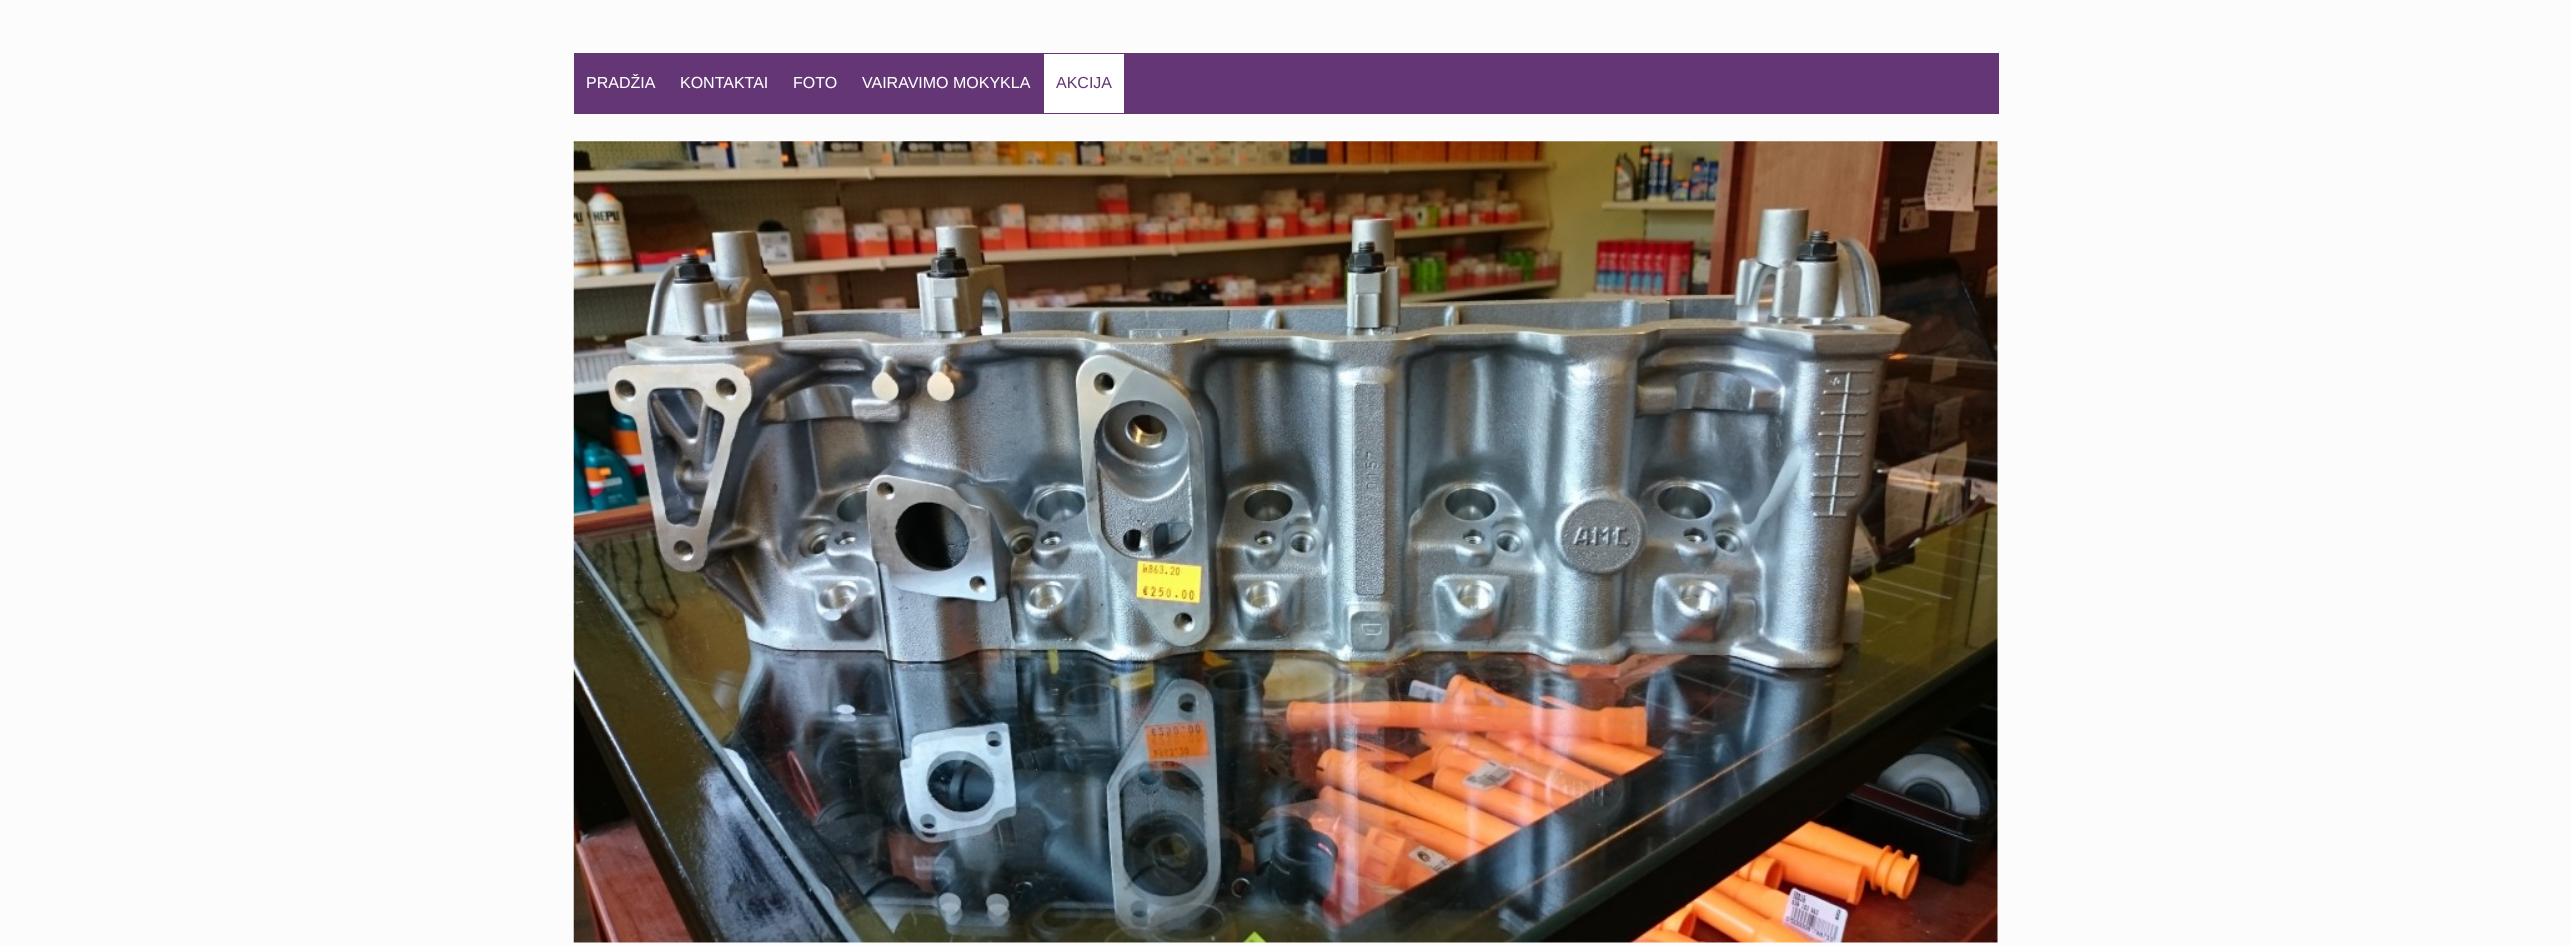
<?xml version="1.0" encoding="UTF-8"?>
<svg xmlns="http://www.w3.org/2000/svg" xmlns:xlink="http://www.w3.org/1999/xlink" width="2571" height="946">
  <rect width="100%" height="100%" fill="#fcfcfc" />
  <rect x="574" y="53" width="1425" height="61" fill="#643675" />
  <rect x="1044" y="54" width="80" height="59" fill="#ffffff" />
  <image x="573" y="141" width="1425" height="802" xlink:href="image1.png" />
  <text x="586" y="88" style="font-family: Liberation Sans; font-size: 16px; fill: #ffffff">PRADŽIA</text>
  <text x="680" y="88" style="font-family: Liberation Sans; font-size: 16px; fill: #ffffff">KONTAKTAI</text>
  <text x="793" y="88" style="font-family: Liberation Sans; font-size: 16px; fill: #ffffff">FOTO</text>
  <text x="862" y="88" style="font-family: Liberation Sans; font-size: 16px; fill: #ffffff">VAIRAVIMO MOKYKLA</text>
  <text x="1056" y="88" style="font-family: Liberation Sans; font-size: 16px; fill: #643675">AKCIJA</text>
</svg>
